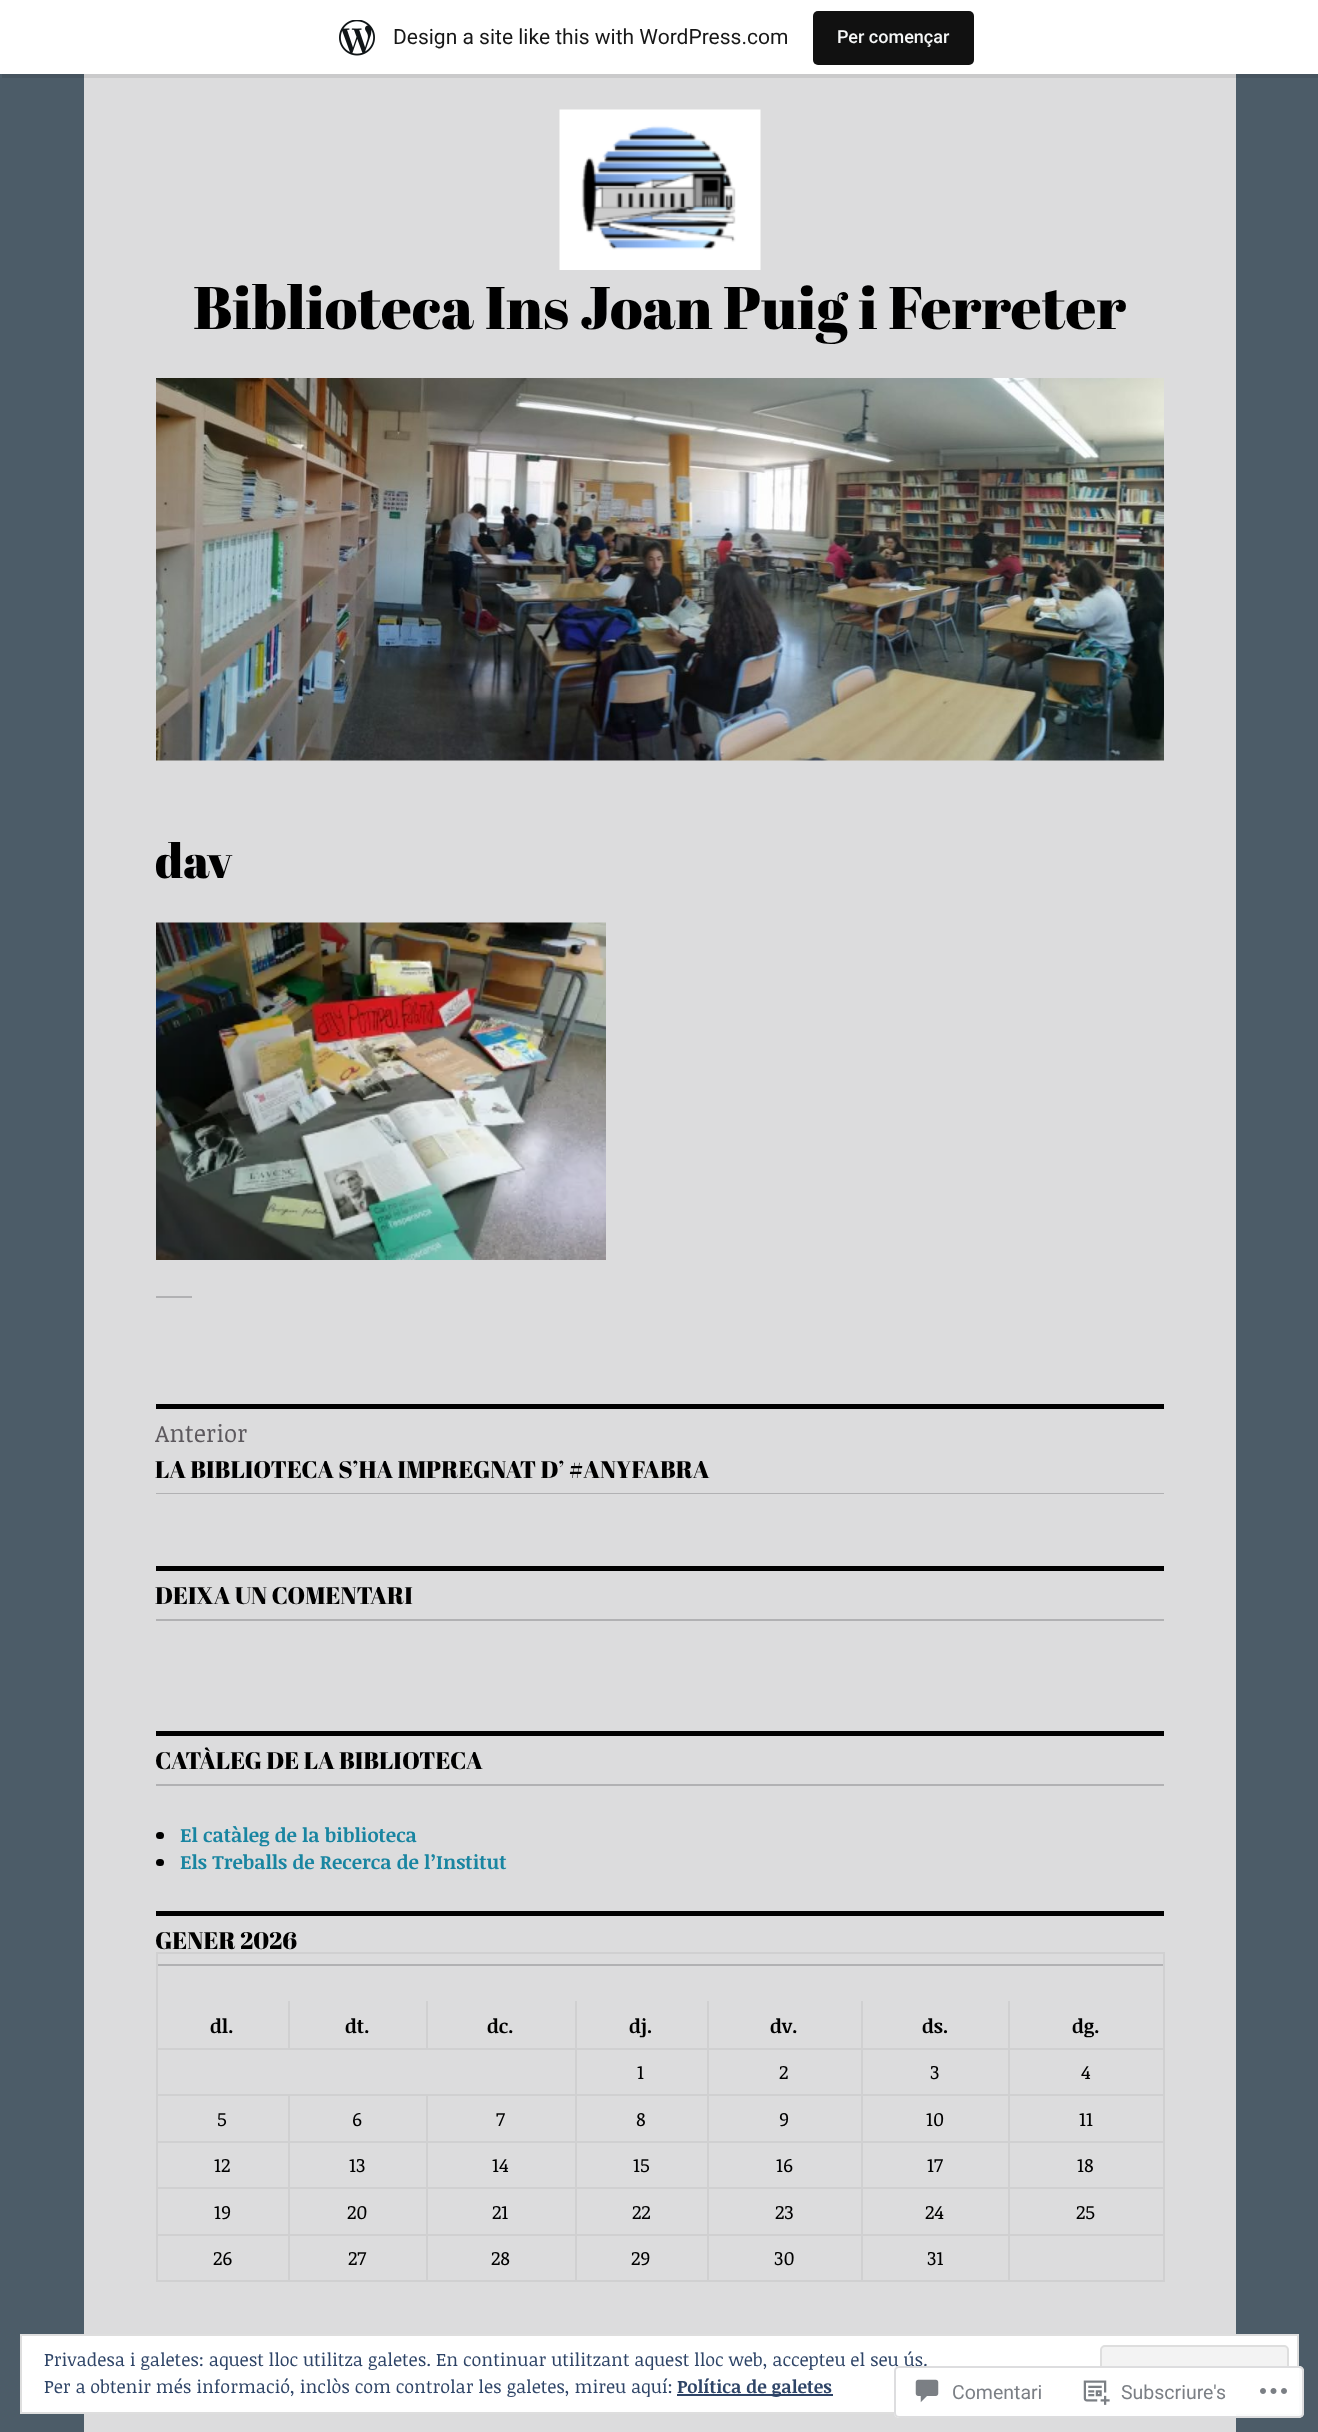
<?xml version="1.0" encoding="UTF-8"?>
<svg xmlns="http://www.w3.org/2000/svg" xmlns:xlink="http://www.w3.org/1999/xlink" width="1318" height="2432">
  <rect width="100%" height="100%" fill="#4c5c68" />
  <rect x="84" y="74" width="1152" height="2358" fill="#dcdcdd" />
  <path d="M 2 74 v 4 h 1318 v -73 h -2 v 69 z" fill="#000000" fill-opacity="0.08" />
  <rect width="1318" height="74" fill="#ffffff" />
  <image x="339" y="20" width="36" height="36" xlink:href="image1.png" />
  <rect x="813" y="11" width="161" height="54" rx="5" fill="#111111" />
  <image x="559" y="109" width="202" height="161" xlink:href="image2.png" />
  <image x="156" y="378" width="1008" height="383" xlink:href="image3.png" />
  <image x="156" y="922" width="450" height="338" xlink:href="image4.png" />
  <rect x="156" y="1296" width="36" height="2" fill="#b1b1b3" />
  <rect x="156" y="1404" width="1008" height="5" fill="#000000" />
  <rect x="156" y="1493" width="1008" height="1" fill="#b1b1b3" />
  <rect x="156" y="1566" width="1008" height="5" fill="#000000" />
  <rect x="156" y="1619" width="1008" height="2" fill="#b1b1b3" />
  <rect x="156" y="1731" width="1008" height="5" fill="#000000" />
  <rect x="156" y="1784" width="1008" height="2" fill="#b1b1b3" />
  <rect x="156" y="1832" width="8" height="7" rx="3.5" fill="#000000" />
  <rect x="156" y="1859" width="8" height="7" rx="3.5" fill="#000000" />
  <rect x="156" y="1911" width="1008" height="5" fill="#000000" />
  <rect x="156" y="1952" width="1008" height="2" fill="#d0d0d1" />
  <rect x="156" y="1964" width="1008" height="2" fill="#b1b1b3" />
  <rect x="1163" y="1952" width="2" height="330" fill="#d0d0d1" />
  <rect x="156" y="2280" width="1008" height="2" fill="#d0d0d1" />
  <rect x="156" y="1952" width="2" height="330" fill="#d0d0d1" />
  <rect x="1008" y="2234" width="2" height="48" fill="#d0d0d1" />
  <rect x="1008" y="2234" width="156" height="2" fill="#d0d0d1" />
  <rect x="1008" y="2187" width="2" height="48" fill="#d0d0d1" />
  <rect x="1008" y="2187" width="156" height="2" fill="#d0d0d1" />
  <rect x="1008" y="2141" width="2" height="48" fill="#d0d0d1" />
  <rect x="1008" y="2141" width="156" height="2" fill="#d0d0d1" />
  <rect x="1008" y="2094" width="2" height="48" fill="#d0d0d1" />
  <rect x="1008" y="2094" width="156" height="2" fill="#d0d0d1" />
  <rect x="1008" y="2048" width="2" height="48" fill="#d0d0d1" />
  <rect x="1008" y="2048" width="156" height="2" fill="#d0d0d1" />
  <rect x="1008" y="2001" width="2" height="48" fill="#d0d0d1" />
  <rect x="861" y="2234" width="2" height="48" fill="#d0d0d1" />
  <rect x="861" y="2234" width="149" height="2" fill="#d0d0d1" />
  <rect x="861" y="2187" width="2" height="48" fill="#d0d0d1" />
  <rect x="861" y="2187" width="149" height="2" fill="#d0d0d1" />
  <rect x="861" y="2141" width="2" height="48" fill="#d0d0d1" />
  <rect x="861" y="2141" width="149" height="2" fill="#d0d0d1" />
  <rect x="861" y="2094" width="2" height="48" fill="#d0d0d1" />
  <rect x="861" y="2094" width="149" height="2" fill="#d0d0d1" />
  <rect x="861" y="2048" width="2" height="48" fill="#d0d0d1" />
  <rect x="861" y="2048" width="149" height="2" fill="#d0d0d1" />
  <rect x="861" y="2001" width="2" height="48" fill="#d0d0d1" />
  <rect x="707" y="2234" width="2" height="48" fill="#d0d0d1" />
  <rect x="707" y="2234" width="156" height="2" fill="#d0d0d1" />
  <rect x="707" y="2187" width="2" height="48" fill="#d0d0d1" />
  <rect x="707" y="2187" width="156" height="2" fill="#d0d0d1" />
  <rect x="707" y="2141" width="2" height="48" fill="#d0d0d1" />
  <rect x="707" y="2141" width="156" height="2" fill="#d0d0d1" />
  <rect x="707" y="2094" width="2" height="48" fill="#d0d0d1" />
  <rect x="707" y="2094" width="156" height="2" fill="#d0d0d1" />
  <rect x="707" y="2048" width="2" height="48" fill="#d0d0d1" />
  <rect x="707" y="2048" width="156" height="2" fill="#d0d0d1" />
  <rect x="707" y="2001" width="2" height="48" fill="#d0d0d1" />
  <rect x="575" y="2234" width="2" height="48" fill="#d0d0d1" />
  <rect x="575" y="2234" width="133" height="2" fill="#d0d0d1" />
  <rect x="575" y="2187" width="2" height="48" fill="#d0d0d1" />
  <rect x="575" y="2187" width="133" height="2" fill="#d0d0d1" />
  <rect x="575" y="2141" width="2" height="48" fill="#d0d0d1" />
  <rect x="575" y="2141" width="133" height="2" fill="#d0d0d1" />
  <rect x="575" y="2094" width="2" height="48" fill="#d0d0d1" />
  <rect x="575" y="2094" width="133" height="2" fill="#d0d0d1" />
  <rect x="575" y="2048" width="2" height="48" fill="#d0d0d1" />
  <rect x="575" y="2048" width="133" height="2" fill="#d0d0d1" />
  <rect x="575" y="2001" width="2" height="48" fill="#d0d0d1" />
  <rect x="426" y="2048" width="150" height="2" fill="#d0d0d1" />
  <rect x="426" y="2001" width="2" height="48" fill="#d0d0d1" />
  <rect x="288" y="2048" width="140" height="2" fill="#d0d0d1" />
  <rect x="288" y="2001" width="2" height="48" fill="#d0d0d1" />
  <rect x="156" y="2048" width="134" height="2" fill="#d0d0d1" />
  <rect x="426" y="2234" width="2" height="48" fill="#d0d0d1" />
  <rect x="426" y="2234" width="150" height="2" fill="#d0d0d1" />
  <rect x="426" y="2187" width="2" height="48" fill="#d0d0d1" />
  <rect x="426" y="2187" width="150" height="2" fill="#d0d0d1" />
  <rect x="426" y="2141" width="2" height="48" fill="#d0d0d1" />
  <rect x="426" y="2141" width="150" height="2" fill="#d0d0d1" />
  <rect x="426" y="2094" width="2" height="48" fill="#d0d0d1" />
  <rect x="288" y="2234" width="2" height="48" fill="#d0d0d1" />
  <rect x="288" y="2234" width="140" height="2" fill="#d0d0d1" />
  <rect x="288" y="2187" width="2" height="48" fill="#d0d0d1" />
  <rect x="288" y="2187" width="140" height="2" fill="#d0d0d1" />
  <rect x="288" y="2141" width="2" height="48" fill="#d0d0d1" />
  <rect x="288" y="2141" width="140" height="2" fill="#d0d0d1" />
  <rect x="288" y="2094" width="2" height="48" fill="#d0d0d1" />
  <rect x="156" y="2094" width="420" height="2" fill="#d0d0d1" />
  <rect x="156" y="2141" width="134" height="2" fill="#d0d0d1" />
  <rect x="156" y="2187" width="134" height="2" fill="#d0d0d1" />
  <rect x="156" y="2234" width="134" height="2" fill="#d0d0d1" />
  <rect x="21" y="2335" width="1277" height="78" fill="#ffffff" stroke="#dedede" stroke-width="2" />
  <rect x="1101" y="2346" width="187" height="56" rx="4" fill="#f3f3f3" stroke="#dedede" stroke-width="2" />
  <rect x="677" y="2394" width="156" height="2" fill="#2e4467" />
  <text x="393" y="44" style="font-family: Roboto; font-size: 21px; fill: #171717">Design a site like this with WordPress.com</text>
  <text x="837" y="43" style="font-family: Roboto; font-size: 18px; font-weight: 500; fill: #f6f7f7">Per començar</text>
  <text x="193" y="329" style="font-family: Abril Fatface; font-size: 60px; fill: #000000">Biblioteca Ins Joan Puig i Ferreter</text>
  <text x="155" y="878" style="font-family: Abril Fatface; font-size: 48px; fill: #000000">dav</text>
  <text x="155" y="1442" style="font-family: Noticia Text; font-size: 24px; fill: #5d595e">Anterior</text>
  <text x="155" y="1478" style="font-family: Abril Fatface; font-size: 24px; fill: #000000">LA BIBLIOTECA S’HA IMPREGNAT D’ #ANYFABRA</text>
  <text x="155" y="1604" style="font-family: Abril Fatface; font-size: 24px; fill: #000000">DEIXA UN COMENTARI</text>
  <text x="155" y="1769" style="font-family: Abril Fatface; font-size: 24px; fill: #000000">CATÀLEG DE LA BIBLIOTECA</text>
  <text x="180" y="1842" style="font-family: Noticia Text; font-size: 19.5px; font-weight: bold; fill: #1985a1">El catàleg de la biblioteca</text>
  <text x="180" y="1869" style="font-family: Noticia Text; font-size: 19.5px; font-weight: bold; fill: #1985a1">Els Treballs de Recerca de l’Institut</text>
  <text x="155" y="1949" style="font-family: Abril Fatface; font-size: 24px; fill: #000000">GENER 2026</text>
  <text x="210" y="2033" style="font-family: Noticia Text; font-size: 19.5px; font-weight: bold; fill: #000000">dl.</text>
  <text x="345" y="2033" style="font-family: Noticia Text; font-size: 19.5px; font-weight: bold; fill: #000000">dt.</text>
  <text x="487" y="2033" style="font-family: Noticia Text; font-size: 19.5px; font-weight: bold; fill: #000000">dc.</text>
  <text x="629" y="2033" style="font-family: Noticia Text; font-size: 19.5px; font-weight: bold; fill: #000000">dj.</text>
  <text x="770" y="2033" style="font-family: Noticia Text; font-size: 19.5px; font-weight: bold; fill: #000000">dv.</text>
  <text x="922" y="2033" style="font-family: Noticia Text; font-size: 19.5px; font-weight: bold; fill: #000000">ds.</text>
  <text x="1072" y="2033" style="font-family: Noticia Text; font-size: 19.5px; font-weight: bold; fill: #000000">dg.</text>
  <text x="637" y="2079" style="font-family: Noticia Text; font-size: 19.5px; fill: #000000">1</text>
  <text x="779" y="2079" style="font-family: Noticia Text; font-size: 19.5px; fill: #000000">2</text>
  <text x="930" y="2079" style="font-family: Noticia Text; font-size: 19.5px; fill: #000000">3</text>
  <text x="1081" y="2079" style="font-family: Noticia Text; font-size: 19.5px; fill: #000000">4</text>
  <text x="217" y="2126" style="font-family: Noticia Text; font-size: 19.5px; fill: #000000">5</text>
  <text x="352" y="2126" style="font-family: Noticia Text; font-size: 19.5px; fill: #000000">6</text>
  <text x="496" y="2126" style="font-family: Noticia Text; font-size: 19.5px; fill: #000000">7</text>
  <text x="636" y="2126" style="font-family: Noticia Text; font-size: 19.5px; fill: #000000">8</text>
  <text x="779" y="2126" style="font-family: Noticia Text; font-size: 19.5px; fill: #000000">9</text>
  <text x="926" y="2126" style="font-family: Noticia Text; font-size: 19.5px; fill: #000000">10</text>
  <text x="1079" y="2126" style="font-family: Noticia Text; font-size: 19.5px; fill: #000000">11</text>
  <text x="214" y="2172" style="font-family: Noticia Text; font-size: 19.5px; fill: #000000">12</text>
  <text x="349" y="2172" style="font-family: Noticia Text; font-size: 19.5px; fill: #000000">13</text>
  <text x="492" y="2172" style="font-family: Noticia Text; font-size: 19.5px; fill: #000000">14</text>
  <text x="633" y="2172" style="font-family: Noticia Text; font-size: 19.5px; fill: #000000">15</text>
  <text x="776" y="2172" style="font-family: Noticia Text; font-size: 19.5px; fill: #000000">16</text>
  <text x="927" y="2172" style="font-family: Noticia Text; font-size: 19.5px; fill: #000000">17</text>
  <text x="1077" y="2172" style="font-family: Noticia Text; font-size: 19.5px; fill: #000000">18</text>
  <text x="214" y="2219" style="font-family: Noticia Text; font-size: 19.5px; fill: #000000">19</text>
  <text x="347" y="2219" style="font-family: Noticia Text; font-size: 19.5px; fill: #000000">20</text>
  <text x="492" y="2219" style="font-family: Noticia Text; font-size: 19.5px; fill: #000000">21</text>
  <text x="632" y="2219" style="font-family: Noticia Text; font-size: 19.5px; fill: #000000">22</text>
  <text x="775" y="2219" style="font-family: Noticia Text; font-size: 19.5px; fill: #000000">23</text>
  <text x="925" y="2219" style="font-family: Noticia Text; font-size: 19.5px; fill: #000000">24</text>
  <text x="1076" y="2219" style="font-family: Noticia Text; font-size: 19.5px; fill: #000000">25</text>
  <text x="213" y="2265" style="font-family: Noticia Text; font-size: 19.5px; fill: #000000">26</text>
  <text x="348" y="2265" style="font-family: Noticia Text; font-size: 19.5px; fill: #000000">27</text>
  <text x="491" y="2265" style="font-family: Noticia Text; font-size: 19.5px; fill: #000000">28</text>
  <text x="631" y="2265" style="font-family: Noticia Text; font-size: 19.5px; fill: #000000">29</text>
  <text x="774" y="2265" style="font-family: Noticia Text; font-size: 19.5px; fill: #000000">30</text>
  <text x="927" y="2265" style="font-family: Noticia Text; font-size: 19.5px; fill: #000000">31</text>
  <text x="44" y="2366" style="font-family: Noticia Text; font-size: 18px; fill: #2e4467">Privadesa i galetes: aquest lloc utilitza galetes. En continuar utilitzant aquest lloc web, accepteu el seu ús.</text>
  <text x="44" y="2393" style="font-family: Noticia Text; font-size: 18px; fill: #2e4467">Per a obtenir més informació, inclòs com controlar les galetes, mireu aquí:</text>
  <text x="677" y="2393" style="font-family: Noticia Text; font-size: 18px; font-weight: bold; fill: #2e4467">Política de galetes</text>
  <rect x="894" y="2366" width="410" height="52" rx="5" fill="#ffffff" fill-opacity="0.98" />
  <rect x="895" y="2367" width="408" height="50" rx="4" fill="none" stroke="#dcdcde" stroke-opacity="0.98" stroke-width="2" />
  <image x="915" y="2379" width="24" height="24" xlink:href="image5.png" />
  <text x="952" y="2399" style="font-family: Roboto; font-size: 19.5px; fill: #7b7f85">Comentari</text>
  <image x="1083" y="2380" width="27" height="25" xlink:href="image6.png" />
  <text x="1121" y="2399" style="font-family: Roboto; font-size: 19.5px; fill: #7b7f85">Subscriure's</text>
  <image x="1260" y="2388" width="27" height="6" xlink:href="image7.png" />
</svg>
